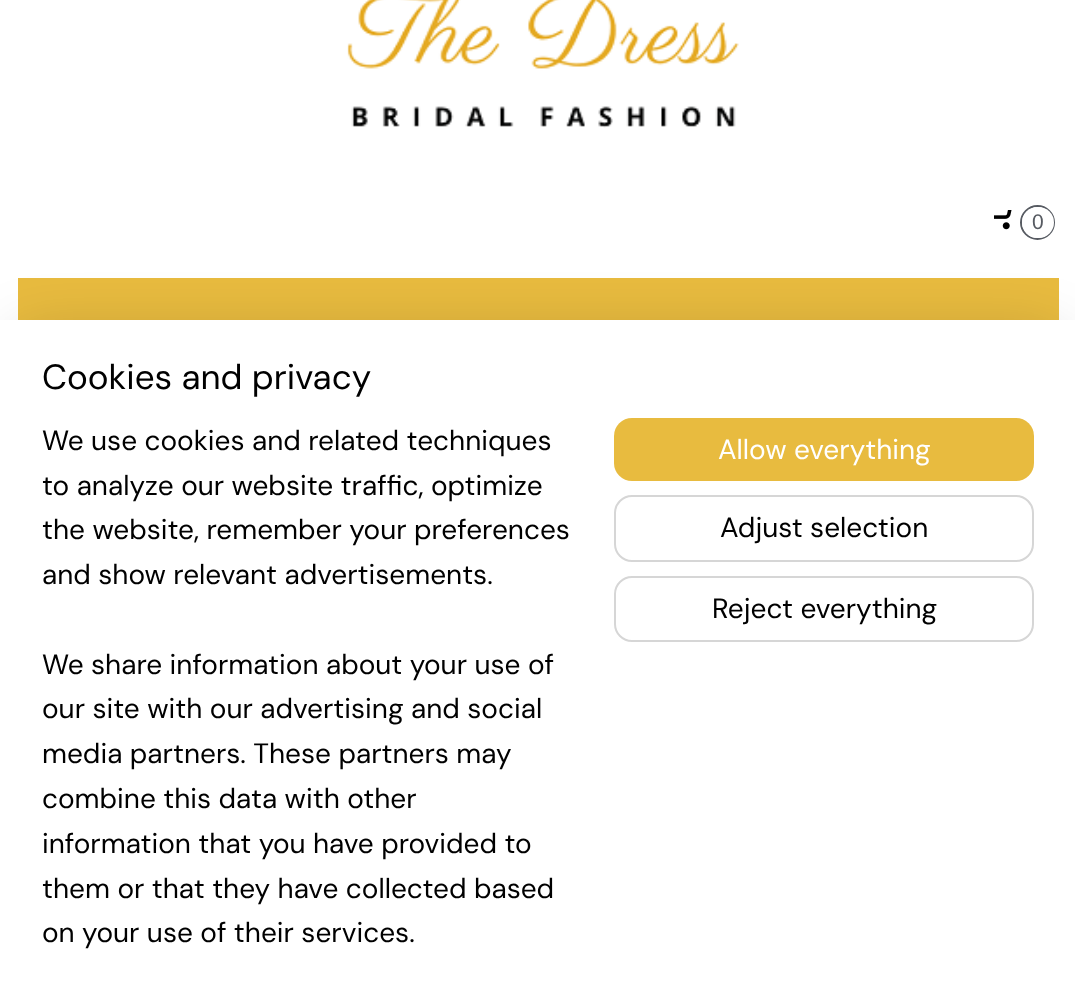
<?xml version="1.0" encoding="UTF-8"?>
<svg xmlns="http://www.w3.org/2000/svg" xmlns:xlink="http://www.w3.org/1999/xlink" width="1075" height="997">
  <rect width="100%" height="100%" fill="#ffffff" />
  <image x="347" y="0" width="392" height="128" xlink:href="image1.png" />
  <image x="994" y="210" width="18" height="20" xlink:href="image2.png" />
  <circle cx="1037.5" cy="222.5" r="16.5" fill="none" stroke="#575b62" stroke-width="2" />
  <rect x="1022" y="207" width="32" height="31" rx="15.5" fill="#ffffff" />
  <rect x="18" y="278" width="1041" height="42" fill="#e8bb3f" />
  <rect x="18" y="338" width="1041" height="642" fill="#000000" fill-opacity="0.2" filter="blur(31.5px)" />
  <rect y="320" width="1075" height="677" fill="#ffffff" />
  <rect x="614" y="418" width="420" height="63" rx="18" fill="#e8bb3f" />
  <rect x="615" y="496" width="418" height="65" rx="17" fill="none" stroke="#d6d6d6" stroke-width="2" />
  <rect x="615" y="577" width="418" height="64" rx="17" fill="none" stroke="#d6d6d6" stroke-width="2" />
  <text x="1032" y="229" style="font-family: Liberation Sans; font-size: 21px; fill: #575b62">0</text>
  <text x="42" y="389" style="font-family: DM Sans; font-size: 35px; fill: #000000">Cookies and privacy</text>
  <text x="42" y="450" style="font-family: DM Sans; font-size: 28px; fill: #000000">We use cookies and related techniques</text>
  <text x="42" y="495" style="font-family: DM Sans; font-size: 28px; fill: #000000">to analyze our website traffic, optimize</text>
  <text x="42" y="539" style="font-family: DM Sans; font-size: 28px; fill: #000000">the website, remember your preferences</text>
  <text x="42" y="584" style="font-family: DM Sans; font-size: 28px; fill: #000000">and show relevant advertisements.</text>
  <text x="42" y="674" style="font-family: DM Sans; font-size: 28px; fill: #000000">We share information about your use of</text>
  <text x="42" y="718" style="font-family: DM Sans; font-size: 28px; fill: #000000">our site with our advertising and social</text>
  <text x="42" y="763" style="font-family: DM Sans; font-size: 28px; fill: #000000">media partners. These partners may</text>
  <text x="42" y="808" style="font-family: DM Sans; font-size: 28px; fill: #000000">combine this data with other</text>
  <text x="42" y="853" style="font-family: DM Sans; font-size: 28px; fill: #000000">information that you have provided to</text>
  <text x="42" y="898" style="font-family: DM Sans; font-size: 28px; fill: #000000">them or that they have collected based</text>
  <text x="42" y="942" style="font-family: DM Sans; font-size: 28px; fill: #000000">on your use of their services.</text>
  <text x="718" y="459" style="font-family: DM Sans; font-size: 28px; fill: #ffffff">Allow everything</text>
  <text x="720" y="537" style="font-family: DM Sans; font-size: 28px; fill: #000000">Adjust selection</text>
  <text x="712" y="618" style="font-family: DM Sans; font-size: 28px; fill: #000000">Reject everything</text>
</svg>
